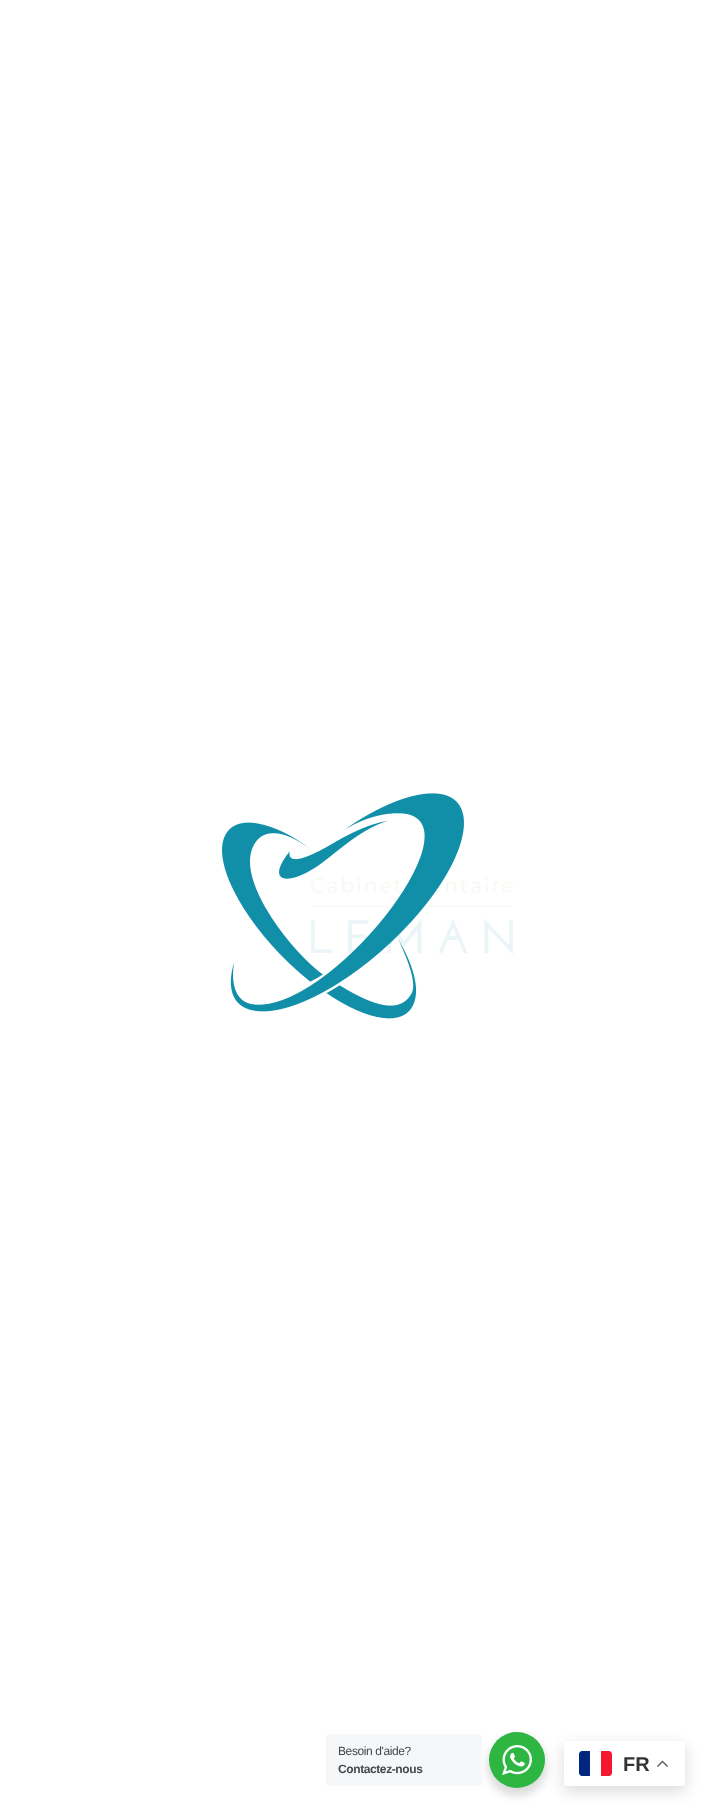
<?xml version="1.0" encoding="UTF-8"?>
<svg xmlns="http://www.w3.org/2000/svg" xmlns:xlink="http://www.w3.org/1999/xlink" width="705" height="1813">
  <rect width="100%" height="100%" fill="#ffffff" />
  <image x="311" y="877" width="202" height="77" xlink:href="image2.png" />
  <image x="222" y="793" width="242" height="226" xlink:href="image1.png" />
  <rect x="487" y="1736" width="60" height="60" rx="30" fill="#000000" fill-opacity="0.14" filter="blur(4px)" />
  <rect x="326" y="1734" width="156" height="52" rx="4" fill="#f5f7f9" />
  <rect x="564" y="1746" width="121" height="45" rx="2" fill="#000000" fill-opacity="0.15" filter="blur(7.5px)" />
  <circle cx="517" cy="1760" r="28" fill="#2db742" />
  <image x="502" y="1745" width="30" height="30" xlink:href="image3.png" />
  <rect x="564" y="1741" width="121" height="45" rx="2" fill="#ffffff" />
  <path d="M 582 1751 h 8 v 25 h -8 c -1.5 0 -3 -1.5 -3 -3 v -19 c 0 -1.5 1.5 -3 3 -3 z" fill="#00267f" />
  <path d="M 601 1751 h 8 c 1.5 0 3 1.5 3 3 v 19 c 0 1.5 -1.5 3 -3 3 h -8 z" fill="#f31830" />
  <image x="657" y="1760" width="11" height="7" xlink:href="image4.png" />
  <text x="338" y="1755" style="font-family: Liberation Sans; font-size: 12px; letter-spacing: -0.4px; fill: #43474e">Besoin d'aide?</text>
  <text x="338" y="1773" style="font-family: Liberation Sans; font-size: 12px; font-weight: bold; letter-spacing: -0.4px; fill: #43474e">Contactez-nous</text>
  <text x="623" y="1771" style="font-family: Liberation Sans; font-size: 20px; font-weight: bold; fill: #333333">FR</text>
</svg>
